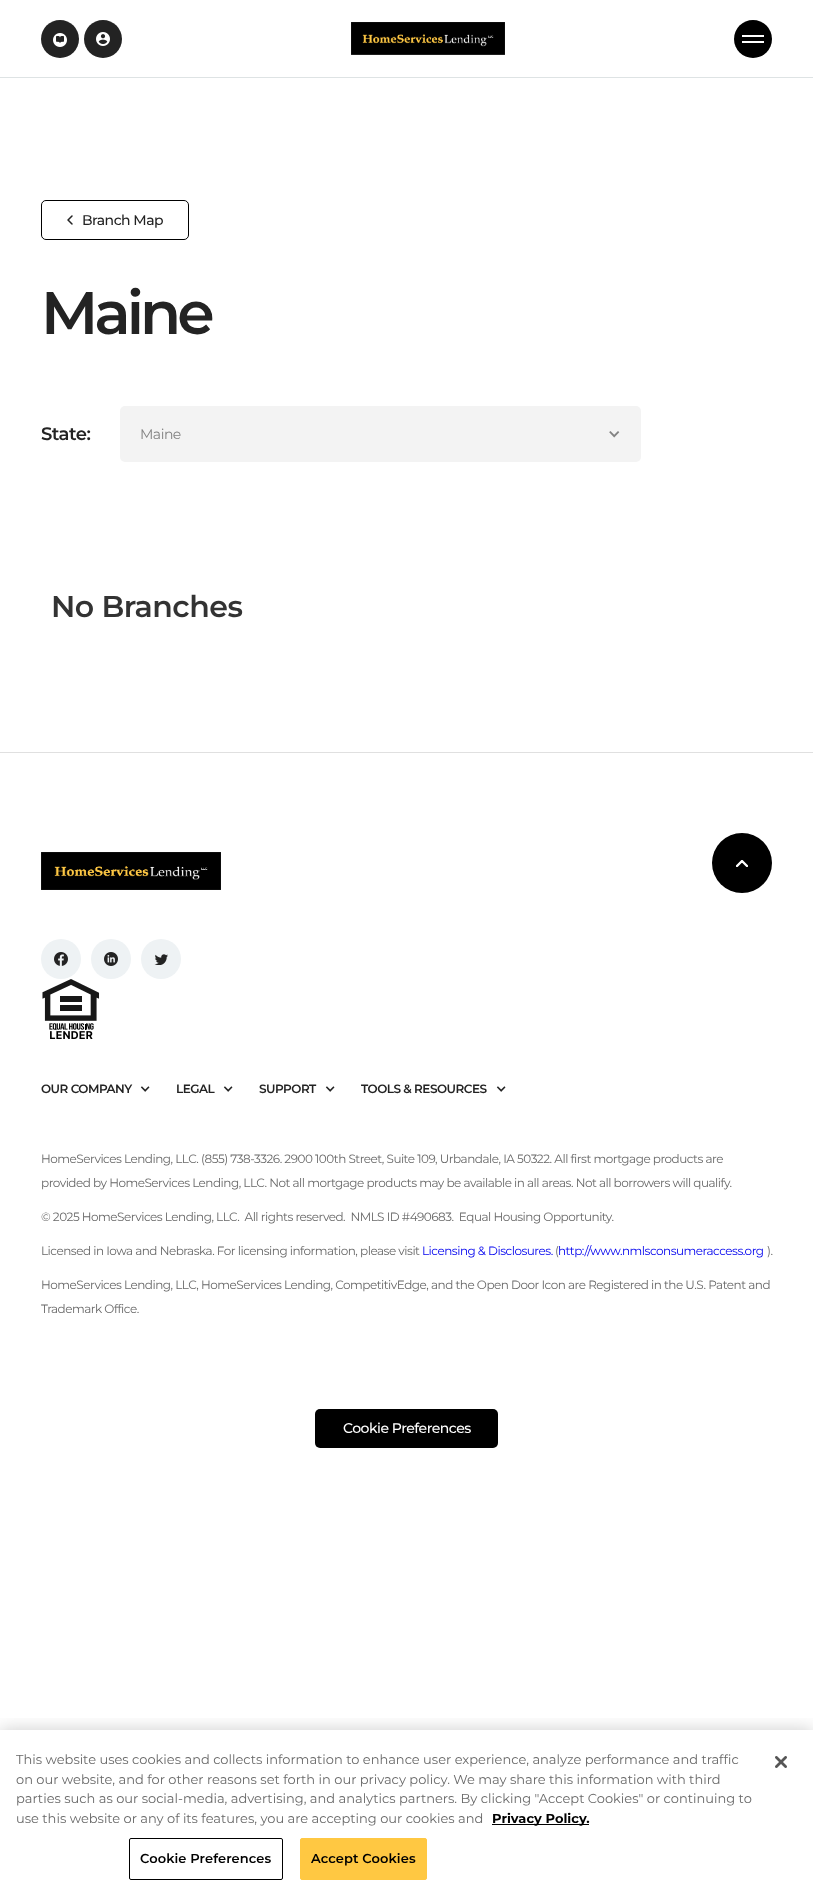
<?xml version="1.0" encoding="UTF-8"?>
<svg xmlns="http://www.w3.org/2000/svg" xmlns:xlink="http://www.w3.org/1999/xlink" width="813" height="1896">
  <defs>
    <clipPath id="clip1"><rect x="736" y="860" width="12" height="7" /></clipPath>
    <clipPath id="clip2"><rect x="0" y="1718" width="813" height="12" /></clipPath>
  </defs>
  <rect width="100%" height="100%" fill="#ffffff" />
  <rect y="77" width="813" height="1" fill="#dee3e4" />
  <circle cx="60" cy="39" r="19" fill="#232323" />
  <image x="53" y="33" width="14" height="14" xlink:href="image1.png" />
  <circle cx="103" cy="39" r="19" fill="#232323" />
  <image x="96" y="32" width="14" height="14" xlink:href="image2.png" />
  <image x="351" y="22" width="154" height="33" xlink:href="image3.png" />
  <circle cx="753" cy="39" r="19" fill="#000000" />
  <rect x="742" y="35" width="22" height="2" fill="#ffffff" />
  <rect x="742" y="41" width="22" height="2" fill="#ffffff" />
  <rect x="41.5" y="200.5" width="147" height="39" rx="4.5" fill="none" stroke="#000000" />
  <image x="67" y="215" width="6" height="10" xlink:href="image4.png" />
  <rect x="120" y="406" width="521" height="56" rx="5" fill="#f3f3f3" />
  <image x="609" y="431" width="11" height="7" xlink:href="image5.png" />
  <rect y="752" width="813" height="1" fill="#e0e0e0" />
  <image x="41" y="852" width="180" height="38" xlink:href="image6.png" />
  <circle cx="61" cy="959" r="20" fill="#eef2f4" />
  <image x="54" y="952" width="14" height="14" xlink:href="image7.png" />
  <circle cx="111" cy="959" r="20" fill="#eef2f4" />
  <image x="104" y="952" width="14" height="14" xlink:href="image8.png" />
  <circle cx="161" cy="959" r="20" fill="#eef2f4" />
  <image x="154" y="954" width="14" height="11" xlink:href="image9.png" />
  <image x="42" y="979" width="58" height="60" xlink:href="image10.png" />
  <circle cx="742" cy="863" r="30" fill="#000000" />
  <g clip-path="url(#clip1)">
    <path d="M 737 866 l 5 -5 l 5 5" fill="none" stroke="#ffffff" stroke-width="2.4" stroke-linecap="round" stroke-linejoin="round" />
  </g>
  <image x="140" y="1086" width="10" height="6" xlink:href="image11.png" />
  <image x="223" y="1086" width="10" height="6" xlink:href="image11.png" />
  <image x="325" y="1086" width="10" height="6" xlink:href="image11.png" />
  <image x="496" y="1086" width="10" height="6" xlink:href="image11.png" />
  <rect x="315" y="1409" width="183" height="39" rx="5" fill="#000000" />
  <g clip-path="url(#clip2)">
    <rect y="1730" width="813" height="166" fill="#000000" fill-opacity="0.2" filter="blur(9px)" />
  </g>
  <rect x="492" y="1824" width="97" height="1" fill="#000000" />
  <rect x="129.5" y="1838.5" width="153" height="41" rx="1.5" fill="none" stroke="#000000" />
  <rect x="300.5" y="1838.5" width="126" height="41" rx="1.5" fill="#ffc842" stroke="#ffc842" />
  <image x="775" y="1756" width="12" height="12" xlink:href="image12.png" />
  <text x="82" y="225" style="font-family: Montserrat; font-size: 14px; font-weight: 500; letter-spacing: -0.5px; fill: #232323">Branch Map</text>
  <text x="41" y="334" style="font-family: Montserrat; font-size: 60px; font-weight: 600; letter-spacing: -4px; fill: #232323">Maine</text>
  <text x="41" y="440" style="font-family: Montserrat; font-size: 18px; font-weight: 600; letter-spacing: -0.5px; fill: #232323">State:</text>
  <text x="140" y="439" style="font-family: Montserrat; font-size: 14px; letter-spacing: -0.5px; fill: #828282">Maine</text>
  <text x="51" y="617" style="font-family: Montserrat; font-size: 30px; font-weight: 600; letter-spacing: -0.5px; fill: #333333">No Branches</text>
  <text x="41" y="1093" style="font-family: Montserrat; font-size: 12px; font-weight: 600; letter-spacing: -0.5px; fill: #232323">OUR COMPANY</text>
  <text x="176" y="1093" style="font-family: Montserrat; font-size: 12px; font-weight: 600; letter-spacing: -0.5px; fill: #232323">LEGAL</text>
  <text x="259" y="1093" style="font-family: Montserrat; font-size: 12px; font-weight: 600; letter-spacing: -0.5px; fill: #232323">SUPPORT</text>
  <text x="361" y="1093" style="font-family: Montserrat; font-size: 12px; font-weight: 600; letter-spacing: -0.5px; fill: #232323">TOOLS &amp; RESOURCES</text>
  <text x="41" y="1163" style="font-family: Montserrat; font-size: 12px; letter-spacing: -0.5px; fill: #696969">HomeServices Lending, LLC. (855) 738-3326. 2900 100th Street, Suite 109, Urbandale, IA 50322. All first mortgage products are</text>
  <text x="41" y="1187" style="font-family: Montserrat; font-size: 12px; letter-spacing: -0.5px; fill: #696969">provided by HomeServices Lending, LLC. Not all mortgage products may be available in all areas. Not all borrowers will qualify.</text>
  <text x="41" y="1221" style="font-family: Montserrat; font-size: 12px; letter-spacing: -0.5px; fill: #696969" xml:space="preserve">© 2025 HomeServices Lending, LLC.  All rights reserved.  NMLS ID #490683.  Equal Housing Opportunity.</text>
  <text x="41" y="1255" style="font-family: Montserrat; font-size: 12px; letter-spacing: -0.5px; fill: #696969">Licensed in Iowa and Nebraska. For licensing information, please visit</text>
  <text x="422" y="1255" style="font-family: Montserrat; font-size: 12px; letter-spacing: -0.5px; fill: #0000ee">Licensing &amp; Disclosures.</text>
  <text x="555" y="1255" style="font-family: Montserrat; font-size: 12px; letter-spacing: -0.5px; fill: #696969">(</text>
  <text x="558" y="1255" style="font-family: Montserrat; font-size: 12px; letter-spacing: -0.5px; fill: #0000ee">http://www.nmlsconsumeraccess.org</text>
  <text x="767" y="1255" style="font-family: Montserrat; font-size: 12px; letter-spacing: -0.5px; fill: #696969">).</text>
  <text x="41" y="1289" style="font-family: Montserrat; font-size: 12px; letter-spacing: -0.5px; fill: #696969">HomeServices Lending, LLC, HomeServices Lending, CompetitivEdge, and the Open Door Icon are Registered in the U.S. Patent and</text>
  <text x="41" y="1313" style="font-family: Montserrat; font-size: 12px; letter-spacing: -0.5px; fill: #696969">Trademark Office.</text>
  <text x="343" y="1433" style="font-family: Montserrat; font-size: 14px; font-weight: 500; letter-spacing: -0.5px; fill: #ffffff">Cookie Preferences</text>
  <text x="16" y="1764" style="font-family: Montserrat; font-size: 13px; fill: #696969">This website uses cookies and collects information to enhance user experience, analyze performance and traffic</text>
  <text x="16" y="1784" style="font-family: Montserrat; font-size: 13px; fill: #696969">on our website, and for other reasons set forth in our privacy policy. We may share this information with third</text>
  <text x="16" y="1803" style="font-family: Montserrat; font-size: 13px; fill: #696969">parties such as our social-media, advertising, and analytics partners. By clicking "Accept Cookies" or continuing to</text>
  <text x="16" y="1823" style="font-family: Montserrat; font-size: 13px; fill: #696969">use this website or any of its features, you are accepting our cookies and</text>
  <text x="492" y="1823" style="font-family: Montserrat; font-size: 13px; font-weight: bold; fill: #000000">Privacy Policy.</text>
  <text x="140" y="1863" style="font-family: Montserrat; font-size: 13px; font-weight: 600; letter-spacing: 0.1px; fill: #000000">Cookie Preferences</text>
  <text x="311" y="1863" style="font-family: Montserrat; font-size: 13px; font-weight: 600; letter-spacing: 0.1px; fill: #000000">Accept Cookies</text>
</svg>
